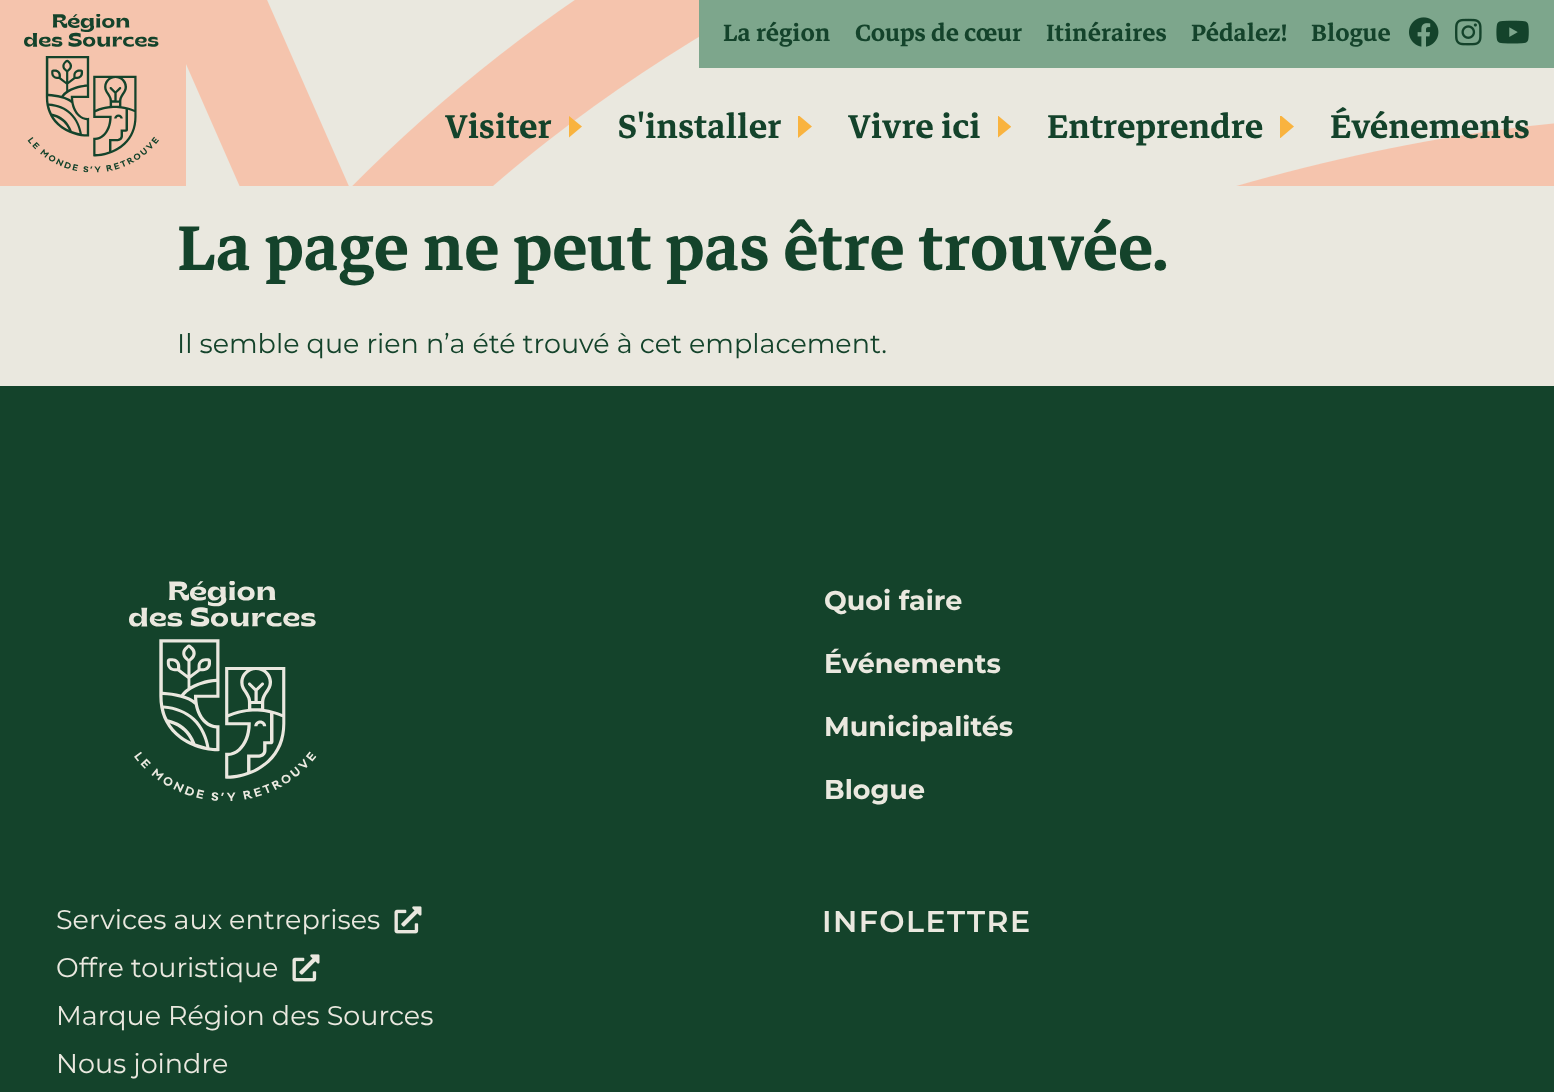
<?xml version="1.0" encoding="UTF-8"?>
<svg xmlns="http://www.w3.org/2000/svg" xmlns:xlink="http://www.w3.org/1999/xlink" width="1554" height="1092">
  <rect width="100%" height="100%" fill="#eae8df" />
  <image x="186" y="0" width="1368" height="186" xlink:href="image1.png" />
  <rect width="186" height="186" fill="#f5c4ad" />
  <image x="24" y="14" width="135" height="159" xlink:href="image2.png" />
  <rect x="699" width="855" height="68" fill="#7da68c" />
  <image x="1409" y="17" width="30" height="30" xlink:href="image3.png" />
  <image x="1455" y="18" width="27" height="28" xlink:href="image4.png" />
  <image x="1496" y="20" width="33" height="24" xlink:href="image5.png" />
  <path d="M 569 116 l 13 10.5 l -13 11 z" fill="#f9b33f" />
  <path d="M 798 116 h 1.5 l 12.5 10.5 l -14 11.5 z" fill="#f9b33f" />
  <path d="M 998 116 h 0.5 l 12.5 10.5 v 0.5 l -13 10.5 z" fill="#f9b33f" />
  <path d="M 1280 116 h 1.5 l 12.5 10.5 l -13.5 11.5 h -0.5 z" fill="#f9b33f" />
  <rect y="386" width="1554" height="706" fill="#14432b" />
  <image x="129" y="581" width="188" height="220" xlink:href="image6.png" />
  <image x="394" y="906" width="28" height="28" xlink:href="image7.png" />
  <image x="292" y="954" width="28" height="28" xlink:href="image7.png" />
  <text x="723" y="41" style="font-family: Markazi Text; font-size: 33.75px; font-weight: 600; fill: #14432b">La région</text>
  <text x="855" y="41" style="font-family: Markazi Text; font-size: 33.75px; font-weight: 600; fill: #14432b">Coups de cœur</text>
  <text x="1046" y="41" style="font-family: Markazi Text; font-size: 33.75px; font-weight: 600; fill: #14432b">Itinéraires</text>
  <text x="1191" y="41" style="font-family: Markazi Text; font-size: 33.75px; font-weight: 600; fill: #14432b">Pédalez!</text>
  <text x="1311" y="41" style="font-family: Markazi Text; font-size: 33.75px; font-weight: 600; fill: #14432b">Blogue</text>
  <text x="445" y="138" style="font-family: Markazi Text; font-size: 47.25px; font-weight: 600; fill: #14432b">Visiter</text>
  <text x="618" y="138" style="font-family: Markazi Text; font-size: 47.25px; font-weight: 600; fill: #14432b">S'installer</text>
  <text x="848" y="138" style="font-family: Markazi Text; font-size: 47.25px; font-weight: 600; fill: #14432b">Vivre ici</text>
  <text x="1047" y="138" style="font-family: Markazi Text; font-size: 47.25px; font-weight: 600; fill: #14432b">Entreprendre</text>
  <text x="1330" y="138" style="font-family: Markazi Text; font-size: 47.25px; font-weight: 600; fill: #14432b">Événements</text>
  <text x="177" y="270" style="font-family: Markazi Text; font-size: 90px; font-weight: 600; fill: #14432b">La page ne peut pas être trouvée.</text>
  <text x="177" y="353" style="font-family: Montserrat; font-size: 27px; fill: #14432b">Il semble que rien n’a été trouvé à cet emplacement.</text>
  <text x="824" y="610" style="font-family: Montserrat; font-size: 27px; font-weight: bold; fill: #eae8df">Quoi faire</text>
  <text x="824" y="673" style="font-family: Montserrat; font-size: 27px; font-weight: bold; fill: #eae8df">Événements</text>
  <text x="824" y="736" style="font-family: Montserrat; font-size: 27px; font-weight: bold; fill: #eae8df">Municipalités</text>
  <text x="824" y="799" style="font-family: Montserrat; font-size: 27px; font-weight: bold; fill: #eae8df">Blogue</text>
  <text x="56" y="929" style="font-family: Montserrat; font-size: 27px; fill: #eae8df">Services aux entreprises</text>
  <text x="56" y="977" style="font-family: Montserrat; font-size: 27px; fill: #eae8df">Offre touristique</text>
  <text x="56" y="1025" style="font-family: Montserrat; font-size: 27px; fill: #eae8df">Marque Région des Sources</text>
  <text x="56" y="1073" style="font-family: Montserrat; font-size: 27px; fill: #eae8df">Nous joindre</text>
  <text x="822" y="932" style="font-family: Montserrat; font-size: 30px; font-weight: 600; letter-spacing: 1.5px; fill: #eae8df">INFOLETTRE</text>
</svg>
